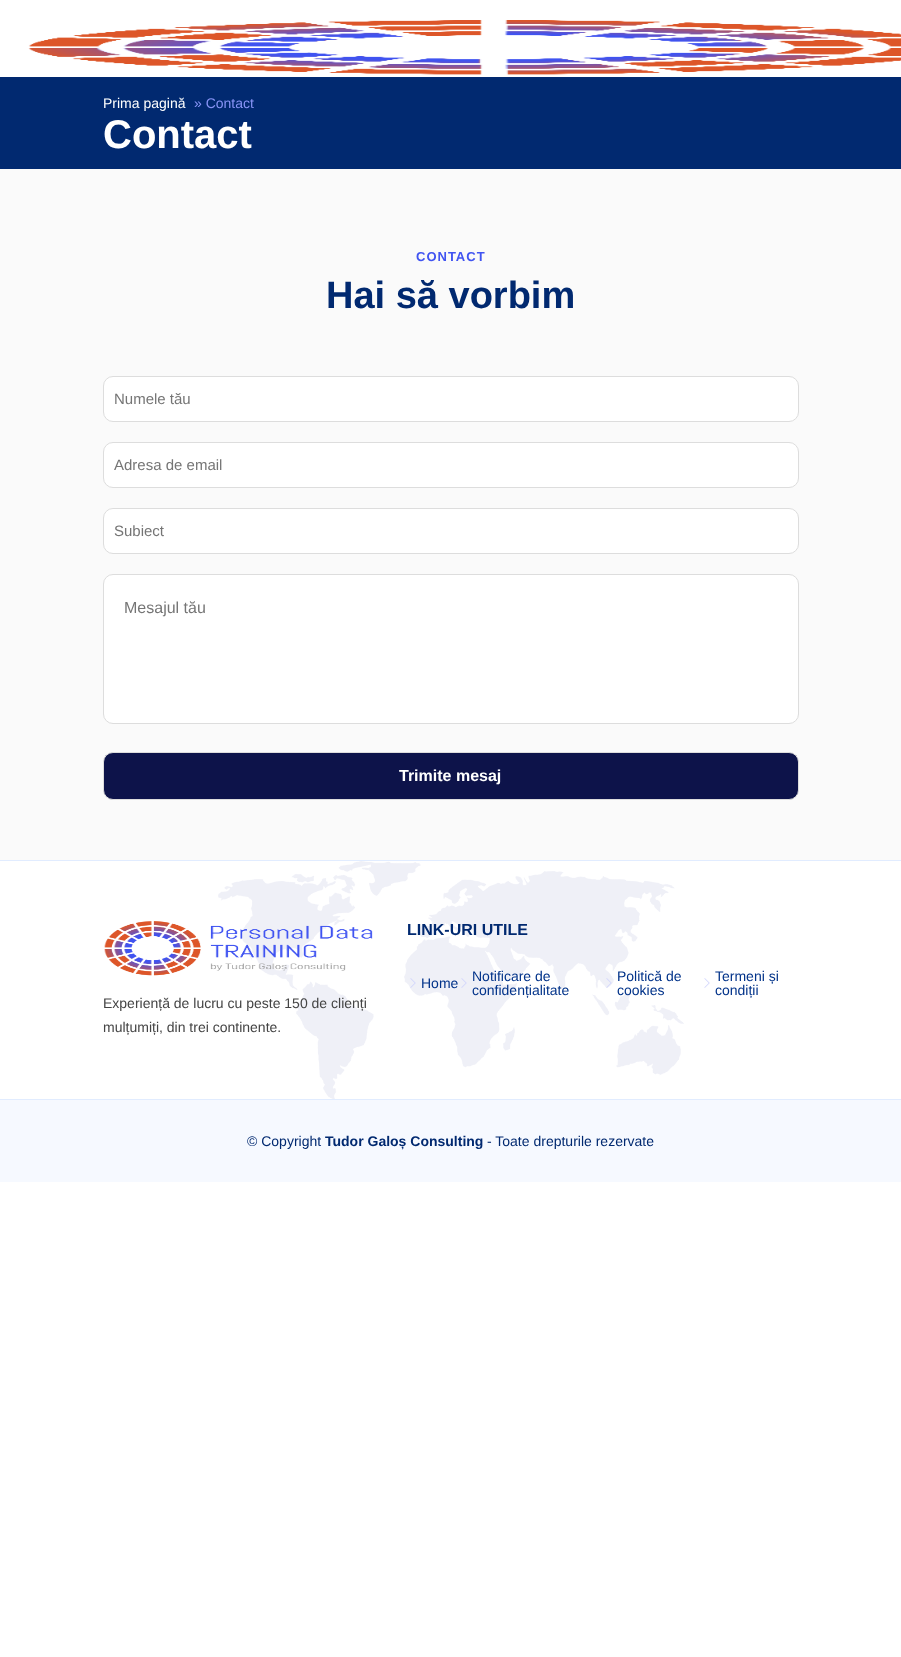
<?xml version="1.0" encoding="UTF-8"?>
<svg xmlns="http://www.w3.org/2000/svg" xmlns:xlink="http://www.w3.org/1999/xlink" width="901" height="1657">
  <rect width="100%" height="100%" fill="#ffffff" />
  <image x="28" y="20" width="873" height="55" xlink:href="image1.png" />
  <rect y="77" width="901" height="92" fill="#012970" />
  <rect y="169" width="901" height="691" fill="#fafafa" />
  <rect x="103.5" y="376.5" width="695" height="45" rx="9.5" fill="#ffffff" stroke="#dddddd" />
  <rect x="103.5" y="442.5" width="695" height="45" rx="9.5" fill="#ffffff" stroke="#dddddd" />
  <rect x="103.5" y="508.5" width="695" height="45" rx="9.5" fill="#ffffff" stroke="#dddddd" />
  <rect x="103.5" y="574.5" width="695" height="149" rx="9.5" fill="#ffffff" stroke="#dddddd" />
  <rect x="103.5" y="752.5" width="695" height="47" rx="9.5" fill="#0d134a" stroke="#dddddd" />
  <rect y="1100" width="901" height="82" fill="#f6f9ff" />
  <image x="218" y="861" width="466" height="238" xlink:href="image2.png" />
  <rect y="860" width="901" height="1" fill="#e1ecff" />
  <rect y="1099" width="901" height="1" fill="#e1ecff" />
  <image x="410" y="978" width="6" height="10" xlink:href="image3.png" />
  <image x="461" y="978" width="6" height="10" xlink:href="image3.png" />
  <image x="606" y="978" width="6" height="10" xlink:href="image4.png" />
  <image x="704" y="978" width="6" height="10" xlink:href="image5.png" />
  <image x="104" y="921" width="269" height="55" xlink:href="image6.png" />
  <text x="103" y="108" style="font-family: Liberation Sans; font-size: 14px; fill: #ffffff">Prima pagină</text>
  <text x="194" y="108" style="font-family: Liberation Sans; font-size: 14px; fill: #8894f6">» Contact</text>
  <text x="103" y="148" style="font-family: Liberation Sans; font-size: 40px; font-weight: bold; fill: #ffffff">Contact</text>
  <text x="416" y="261" style="font-family: Liberation Sans; font-size: 13px; font-weight: bold; letter-spacing: 1px; fill: #4154f1">CONTACT</text>
  <text x="326" y="308" style="font-family: Liberation Sans; font-size: 38px; font-weight: bold; fill: #012970">Hai să vorbim</text>
  <text x="114" y="404" style="font-family: Liberation Sans; font-size: 15px; fill: #757575">Numele tău</text>
  <text x="114" y="470" style="font-family: Liberation Sans; font-size: 15px; fill: #757575">Adresa de email</text>
  <text x="114" y="536" style="font-family: Liberation Sans; font-size: 15px; fill: #757575">Subiect</text>
  <text x="124" y="613" style="font-family: Liberation Sans; font-size: 16px; fill: #757575">Mesajul tău</text>
  <text x="399" y="781" style="font-family: Liberation Sans; font-size: 16px; font-weight: bold; fill: #ffffff">Trimite mesaj</text>
  <text x="407" y="935" style="font-family: Liberation Sans; font-size: 16px; font-weight: bold; fill: #012970">LINK-URI UTILE</text>
  <text x="421" y="988" style="font-family: Liberation Sans; font-size: 14px; fill: #013289">Home</text>
  <text x="472" y="981" style="font-family: Liberation Sans; font-size: 14px; fill: #013289">Notificare de</text>
  <text x="472" y="995" style="font-family: Liberation Sans; font-size: 14px; fill: #013289">confidențialitate</text>
  <text x="617" y="981" style="font-family: Liberation Sans; font-size: 14px; fill: #013289">Politică de</text>
  <text x="617" y="995" style="font-family: Liberation Sans; font-size: 14px; fill: #013289">cookies</text>
  <text x="715" y="981" style="font-family: Liberation Sans; font-size: 14px; fill: #013289">Termeni și</text>
  <text x="715" y="995" style="font-family: Liberation Sans; font-size: 14px; fill: #013289">condiții</text>
  <text x="103" y="1008" style="font-family: Liberation Sans; font-size: 14px; fill: #444444">Experiență de lucru cu peste 150 de clienți</text>
  <text x="103" y="1032" style="font-family: Liberation Sans; font-size: 14px; fill: #444444">mulțumiți, din trei continente.</text>
  <text x="247" y="1146" style="font-family: Liberation Sans; font-size: 14px; fill: #012970">© Copyright</text>
  <text x="325" y="1146" style="font-family: Liberation Sans; font-size: 14px; font-weight: bold; fill: #012970">Tudor Galoș Consulting</text>
  <text x="487" y="1146" style="font-family: Liberation Sans; font-size: 14px; fill: #012970">- Toate drepturile rezervate</text>
</svg>
